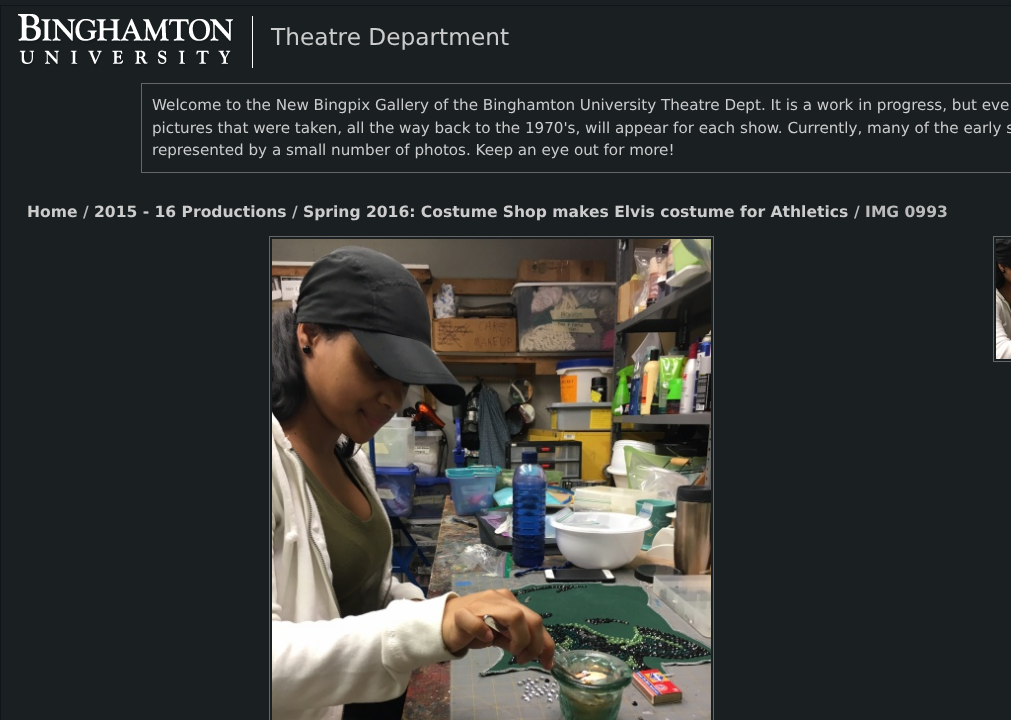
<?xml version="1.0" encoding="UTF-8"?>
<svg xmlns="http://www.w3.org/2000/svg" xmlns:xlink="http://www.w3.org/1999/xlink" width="1011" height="720">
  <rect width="100%" height="100%" fill="#1a2022" />
  <rect x="0.5" y="5.5" width="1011" height="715" fill="none" stroke="#10151c" />
  <image x="18" y="14" width="235" height="54" xlink:href="image1.png" />
  <rect x="141.5" y="83.5" width="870" height="89" fill="none" stroke="#666666" />
  <rect x="269.5" y="236.5" width="444" height="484" fill="none" stroke="#666666" />
  <rect x="993.5" y="236.5" width="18" height="125" fill="none" stroke="#666666" />
  <image x="996" y="239" width="15" height="120" xlink:href="image2.png" />
  <image x="272" y="239" width="439" height="481" xlink:href="image3.png" />
  <text x="271" y="45" style="font-family: DejaVu Sans; font-size: 23.25px; fill: #cccccc">Theatre Department</text>
  <text x="152" y="110" style="font-family: DejaVu Sans; font-size: 15.15px; fill: #cccccc">Welcome to the New Bingpix Gallery of the Binghamton University Theatre Dept. It is a work in progress, but eve</text>
  <text x="152" y="133" style="font-family: DejaVu Sans; font-size: 15.15px; fill: #cccccc">pictures that were taken, all the way back to the 1970's, will appear for each show. Currently, many of the early s</text>
  <text x="152" y="155" style="font-family: DejaVu Sans; font-size: 15.15px; fill: #cccccc">represented by a small number of photos. Keep an eye out for more!</text>
  <text x="27" y="217" style="font-family: DejaVu Sans; font-size: 15.55px; font-weight: bold; fill: #cccccc">Home</text>
  <text x="83" y="217" style="font-family: DejaVu Sans; font-size: 15.55px; font-weight: bold; fill: #bbbbbb">/</text>
  <text x="94" y="217" style="font-family: DejaVu Sans; font-size: 15.55px; font-weight: bold; fill: #cccccc">2015 - 16 Productions</text>
  <text x="292" y="217" style="font-family: DejaVu Sans; font-size: 15.55px; font-weight: bold; fill: #bbbbbb">/</text>
  <text x="303" y="217" style="font-family: DejaVu Sans; font-size: 15.55px; font-weight: bold; fill: #cccccc">Spring 2016: Costume Shop makes Elvis costume for Athletics</text>
  <text x="854" y="217" style="font-family: DejaVu Sans; font-size: 15.55px; font-weight: bold; fill: #bbbbbb">/ IMG 0993</text>
</svg>
